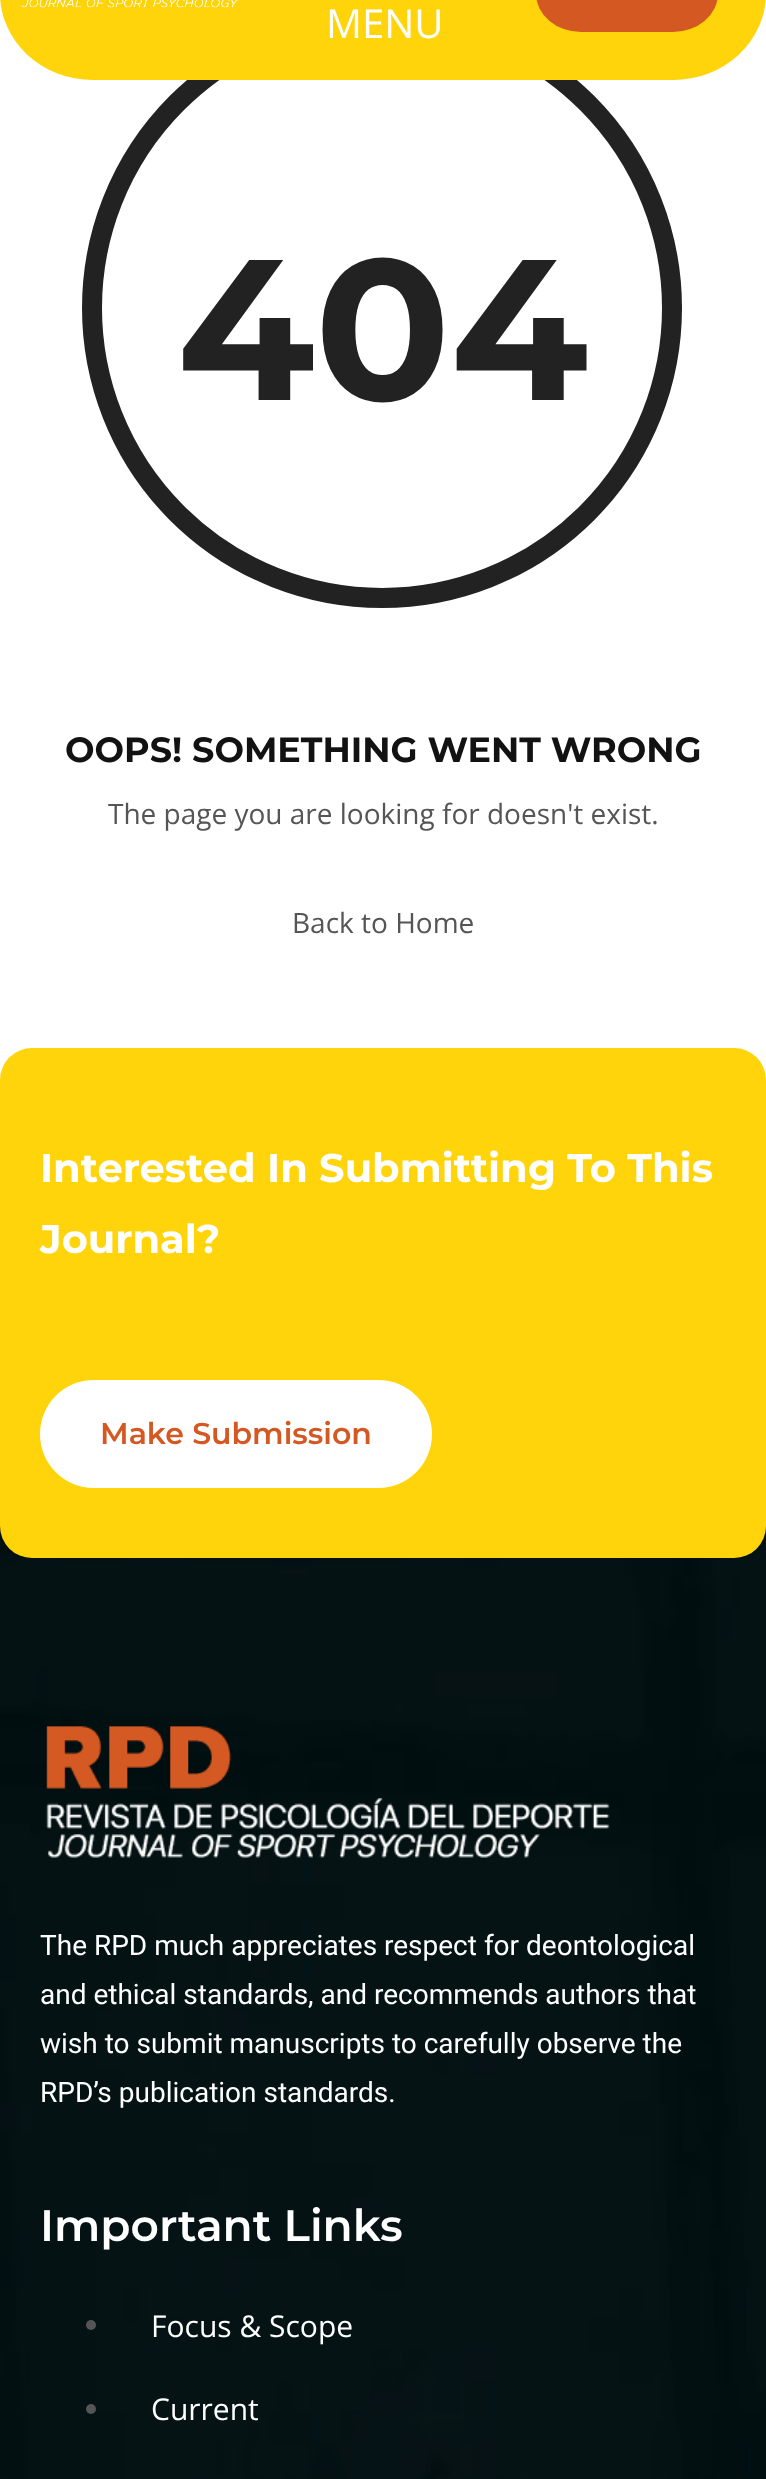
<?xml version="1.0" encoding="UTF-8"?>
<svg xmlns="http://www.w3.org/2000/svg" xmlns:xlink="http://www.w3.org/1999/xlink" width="766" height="2479">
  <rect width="100%" height="100%" fill="#ffffff" />
  <circle cx="382" cy="308" r="290" fill="none" stroke="#222222" stroke-width="20" />
  <rect y="-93" width="766" height="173" rx="93" fill="#ffd40b" />
  <image x="21" y="0" width="217" height="8" xlink:href="image1.png" />
  <rect x="536" y="-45" width="182" height="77" rx="45" fill="#d45822" />
  <image x="0" y="1526" width="766" height="953" xlink:href="image2.png" />
  <rect y="1048" width="766" height="510" rx="32" fill="#ffd40b" />
  <rect x="40" y="1380" width="392" height="108" rx="54" fill="#ffffff" />
  <image x="46" y="1726" width="564" height="132" xlink:href="image3.png" />
  <circle cx="91" cy="2325" r="5" fill="#555555" />
  <circle cx="91" cy="2409" r="5" fill="#555555" />
  <text x="326" y="38" style="font-family: Open Sans; font-size: 40px; fill: #ffffff">MENU</text>
  <text x="177" y="400" style="font-family: Montserrat; font-size: 200px; font-weight: bold; fill: #222222">404</text>
  <text x="65" y="762" style="font-family: Montserrat; font-size: 35px; font-weight: bold; fill: #121212">OOPS! SOMETHING WENT WRONG</text>
  <text x="108" y="824" style="font-family: Open Sans; font-size: 28px; fill: #555555">The page you are looking for doesn't exist.</text>
  <text x="292" y="933" style="font-family: Open Sans; font-size: 28px; fill: #555555">Back to Home</text>
  <text x="40" y="1182" style="font-family: Montserrat; font-size: 40px; font-weight: bold; fill: #ffffff">Interested In Submitting To This</text>
  <text x="40" y="1253" style="font-family: Montserrat; font-size: 40px; font-weight: bold; fill: #ffffff">Journal?</text>
  <text x="100" y="1444" style="font-family: Montserrat; font-size: 30px; font-weight: 600; fill: #d45822">Make Submission</text>
  <text x="40" y="1955" style="font-family: Roboto; font-size: 28px; fill: #ffffff">The RPD much appreciates respect for deontological</text>
  <text x="40" y="2004" style="font-family: Roboto; font-size: 28px; fill: #ffffff">and ethical standards, and recommends authors that</text>
  <text x="40" y="2053" style="font-family: Roboto; font-size: 28px; fill: #ffffff">wish to submit manuscripts to carefully observe the</text>
  <text x="40" y="2102" style="font-family: Roboto; font-size: 28px; fill: #ffffff">RPD’s publication standards.</text>
  <text x="40" y="2241" style="font-family: Montserrat; font-size: 44px; font-weight: 600; fill: #ffffff">Important Links</text>
  <text x="151" y="2337" style="font-family: Open Sans; font-size: 30px; fill: #ffffff">Focus &amp; Scope</text>
  <text x="151" y="2420" style="font-family: Open Sans; font-size: 30px; fill: #ffffff">Current</text>
</svg>
